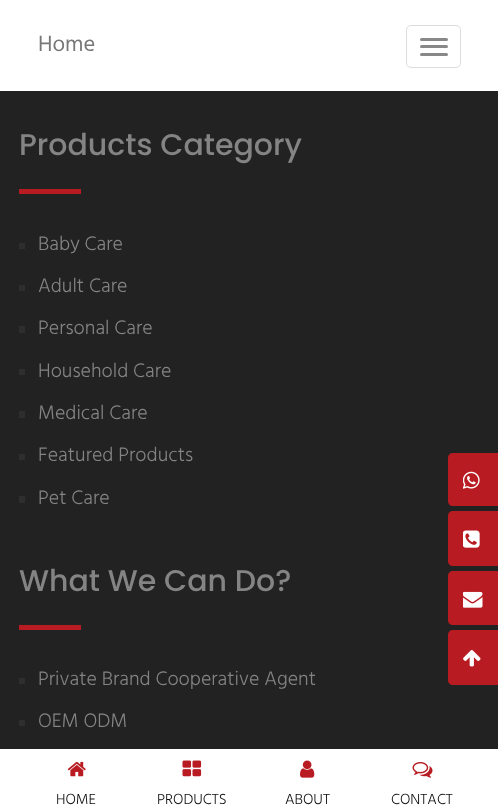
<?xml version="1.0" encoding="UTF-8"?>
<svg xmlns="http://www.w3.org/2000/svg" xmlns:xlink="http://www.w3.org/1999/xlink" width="498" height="811">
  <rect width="100%" height="100%" fill="#222222" />
  <rect width="498" height="91" fill="#ffffff" />
  <rect x="406.5" y="25.5" width="54" height="42" rx="4.5" fill="none" stroke="#dddddd" />
  <rect x="420" y="38" width="28" height="3" rx="1.5" fill="#888888" />
  <rect x="420" y="45" width="28" height="3" rx="1.5" fill="#888888" />
  <rect x="420" y="53" width="28" height="3" rx="1.5" fill="#888888" />
  <rect x="19" y="189" width="62" height="5" fill="#b81c22" />
  <rect x="19" y="243" width="6" height="6" fill="#2e2e2e" />
  <rect x="19" y="285" width="6" height="6" fill="#2e2e2e" />
  <rect x="19" y="326" width="6" height="7" fill="#2e2e2e" />
  <rect x="19" y="369" width="6" height="6" fill="#2e2e2e" />
  <rect x="19" y="411" width="6" height="7" fill="#2e2e2e" />
  <rect x="19" y="454" width="6" height="6" fill="#2e2e2e" />
  <rect x="19" y="496" width="6" height="7" fill="#2e2e2e" />
  <rect x="19" y="625" width="62" height="5" fill="#b81c22" />
  <rect x="19" y="678" width="6" height="6" fill="#2e2e2e" />
  <rect x="19" y="720" width="6" height="6" fill="#2e2e2e" />
  <rect y="749" width="498" height="62" fill="#ffffff" />
  <image x="67" y="761" width="19" height="16" xlink:href="image1.png" />
  <image x="182" y="760" width="20" height="17" xlink:href="image2.png" />
  <image x="300" y="760" width="15" height="18" xlink:href="image3.png" />
  <image x="412" y="762" width="21" height="16" xlink:href="image4.png" />
  <path d="M 453 453 h 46 v 53 h -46 c -3 0 -5 -2 -5 -5 v -43 c 0 -3 2 -5 5 -5 z" fill="#b81c22" />
  <image x="463" y="471" width="17" height="18" xlink:href="image5.png" />
  <path d="M 453 511 h 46 v 55 h -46 c -3 0 -5 -2 -5 -5 v -45 c 0 -3 2 -5 5 -5 z" fill="#b81c22" />
  <image x="463" y="530" width="17" height="18" xlink:href="image6.png" />
  <path d="M 453 571 h 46 v 54 h -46 c -3 0 -5 -2 -5 -5 v -44 c 0 -3 2 -5 5 -5 z" fill="#b81c22" />
  <image x="463" y="591" width="20" height="17" xlink:href="image7.png" />
  <path d="M 453 630 h 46 v 55 h -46 c -3 0 -5 -2 -5 -5 v -45 c 0 -3 2 -5 5 -5 z" fill="#b81c22" />
  <image x="463" y="650" width="18" height="17" xlink:href="image8.png" />
  <text x="38" y="51" style="font-family: Hind; font-size: 22.5px; fill: #777777">Home</text>
  <text x="19" y="155" style="font-family: Poppins; font-size: 30px; font-weight: 500; fill: #848484">Products Category</text>
  <text x="38" y="250" style="font-family: Hind; font-size: 20px; font-weight: 300; fill: #848484">Baby Care</text>
  <text x="38" y="292" style="font-family: Hind; font-size: 20px; font-weight: 300; fill: #848484">Adult Care</text>
  <text x="38" y="334" style="font-family: Hind; font-size: 20px; font-weight: 300; fill: #848484">Personal Care</text>
  <text x="38" y="377" style="font-family: Hind; font-size: 20px; font-weight: 300; fill: #848484">Household Care</text>
  <text x="38" y="419" style="font-family: Hind; font-size: 20px; font-weight: 300; fill: #848484">Medical Care</text>
  <text x="38" y="461" style="font-family: Hind; font-size: 20px; font-weight: 300; fill: #848484">Featured Products</text>
  <text x="38" y="504" style="font-family: Hind; font-size: 20px; font-weight: 300; fill: #848484">Pet Care</text>
  <text x="19" y="591" style="font-family: Poppins; font-size: 30px; font-weight: 500; fill: #848484">What We Can Do?</text>
  <text x="38" y="685" style="font-family: Hind; font-size: 20px; font-weight: 300; fill: #848484">Private Brand Cooperative Agent</text>
  <text x="38" y="727" style="font-family: Hind; font-size: 20px; font-weight: 300; fill: #848484">OEM ODM</text>
  <text x="56" y="804" style="font-family: Hind; font-size: 15px; font-weight: 300; fill: #0d0d0d">HOME</text>
  <text x="157" y="804" style="font-family: Hind; font-size: 15px; font-weight: 300; fill: #0d0d0d">PRODUCTS</text>
  <text x="285" y="804" style="font-family: Hind; font-size: 15px; font-weight: 300; fill: #0d0d0d">ABOUT</text>
  <text x="391" y="804" style="font-family: Hind; font-size: 15px; font-weight: 300; fill: #0d0d0d">CONTACT</text>
</svg>
